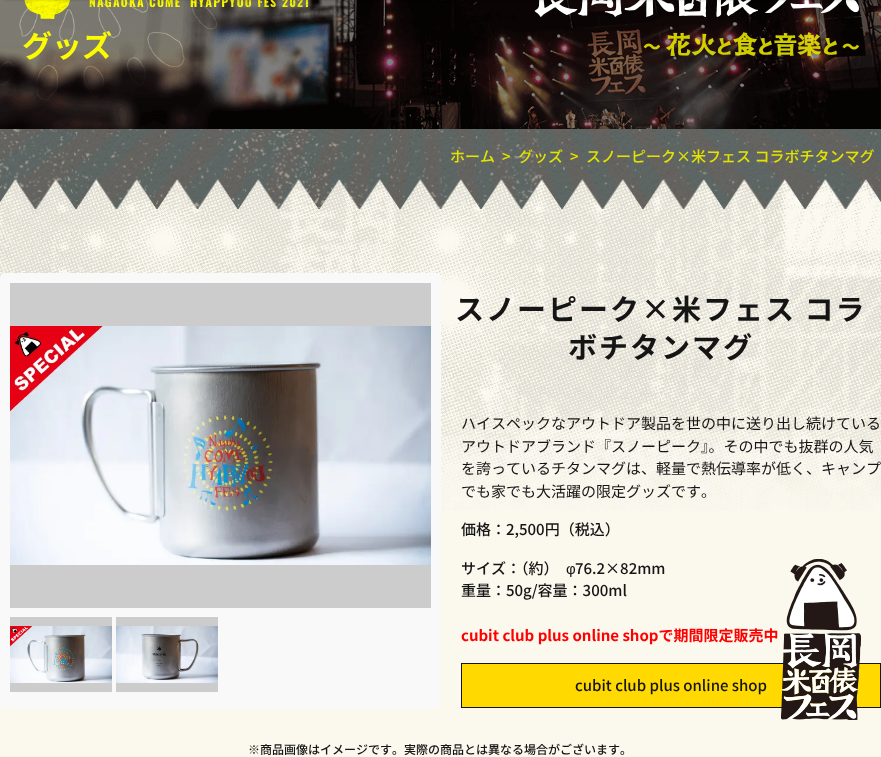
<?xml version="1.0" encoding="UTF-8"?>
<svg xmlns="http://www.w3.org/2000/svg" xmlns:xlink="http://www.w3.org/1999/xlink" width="881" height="757">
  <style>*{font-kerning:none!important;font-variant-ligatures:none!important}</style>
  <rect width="100%" height="100%" fill="#ffffff" />
  <image x="0" y="0" width="881" height="129" xlink:href="image1.png" />
  <image x="24" y="0" width="284" height="19" xlink:href="image2.png" />
  <image x="534" y="0" width="325" height="56" xlink:href="image3.png" />
  <rect x="3" y="-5" width="875" height="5" fill="#000000" fill-opacity="0.2" filter="blur(1.5px)" />
  <rect y="511" width="881" height="246" fill="#fbf8ee" />
  <image x="0" y="179" width="881" height="332" xlink:href="image4.png" />
  <image x="0" y="129" width="881" height="80" xlink:href="image5.png" />
  <rect y="273" width="441" height="435" rx="5" fill="#f9f9f9" />
  <rect x="10" y="283" width="421" height="325" fill="#cccccc" />
  <image x="10" y="326" width="421" height="239" xlink:href="image6.png" />
  <rect x="10" y="617" width="102" height="75" fill="#cccccc" />
  <image x="10" y="626" width="102" height="57" xlink:href="image7.png" />
  <rect x="116" y="617" width="102" height="75" fill="#cccccc" />
  <image x="116" y="626" width="102" height="57" xlink:href="image8.png" />
  <rect x="461.5" y="663.5" width="419" height="44" fill="#ffd900" stroke="#151515" />
  <image x="781" y="559" width="80" height="161" xlink:href="image9.png" />
  <text x="22" y="57" style="font-family: Noto Sans JP; font-size: 30px; font-weight: bold; fill: #fcfc00">グッズ</text>
  <text x="450" y="162" style="font-family: Noto Sans JP; font-size: 15px; font-weight: 500; fill: #e3e300">ホーム</text>
  <text x="502" y="162" style="font-family: Noto Sans JP; font-size: 15px; font-weight: 500; fill: #e3e300">&gt;</text>
  <text x="518" y="162" style="font-family: Noto Sans JP; font-size: 15px; font-weight: 500; fill: #e3e300">グッズ</text>
  <text x="570" y="162" style="font-family: Noto Sans JP; font-size: 15px; font-weight: 500; fill: #e3e300">&gt;</text>
  <text x="586" y="162" style="font-family: Noto Sans JP; font-size: 15px; font-weight: 500; fill: #e3e300">スノーピーク×米フェス コラボチタンマグ</text>
  <text x="455" y="320" style="font-family: Noto Sans JP; font-size: 29px; font-weight: bold; letter-spacing: 2px; fill: #151515">スノーピーク×米フェス コラ</text>
  <text x="568" y="358" style="font-family: Noto Sans JP; font-size: 29px; font-weight: bold; letter-spacing: 2px; fill: #151515">ボチタンマグ</text>
  <text x="461" y="429" style="font-family: Noto Sans JP; font-size: 15px; fill: #151515">ハイスペックなアウトドア製品を世の中に送り出し続けている</text>
  <text x="461" y="452" style="font-family: Noto Sans JP; font-size: 15px; fill: #151515">アウトドアブランド『スノーピーク』。その中でも抜群の人気</text>
  <text x="461" y="474" style="font-family: Noto Sans JP; font-size: 15px; fill: #151515">を誇っているチタンマグは、軽量で熱伝導率が低く、キャンプ</text>
  <text x="461" y="497" style="font-family: Noto Sans JP; font-size: 15px; fill: #151515">でも家でも大活躍の限定グッズです。</text>
  <text x="461" y="535" style="font-family: Noto Sans JP; font-size: 15px; font-weight: 500; fill: #151515">価格：2,500円（税込）</text>
  <text x="461" y="574" style="font-family: Noto Sans JP; font-size: 15px; font-weight: 500; fill: #151515">サイズ：（約）</text>
  <text x="566" y="574" style="font-family: Liberation Sans; font-size: 15px; fill: #151515">φ</text>
  <text x="575" y="574" style="font-family: Noto Sans JP; font-size: 15px; font-weight: 500; fill: #151515">76.2×82mm</text>
  <text x="461" y="596" style="font-family: Noto Sans JP; font-size: 15px; font-weight: 500; fill: #151515">重量：50g/容量：300ml</text>
  <text x="461" y="641" style="font-family: Noto Sans JP; font-size: 15px; font-weight: bold; fill: #ff0000">cubit club plus online shopで期間限定販売中</text>
  <text x="575" y="691" style="font-family: Noto Sans JP; font-size: 15px; font-weight: 500; fill: #151515">cubit club plus online shop</text>
  <text x="248" y="754" style="font-family: Noto Sans JP; font-size: 12px; font-weight: 500; fill: #151515">※商品画像はイメージです。実際の商品とは異なる場合がございます</text>
  <text x="620" y="754" style="font-family: Noto Sans JP; font-size: 12px; font-weight: 500; fill: #151515">。</text>
</svg>
